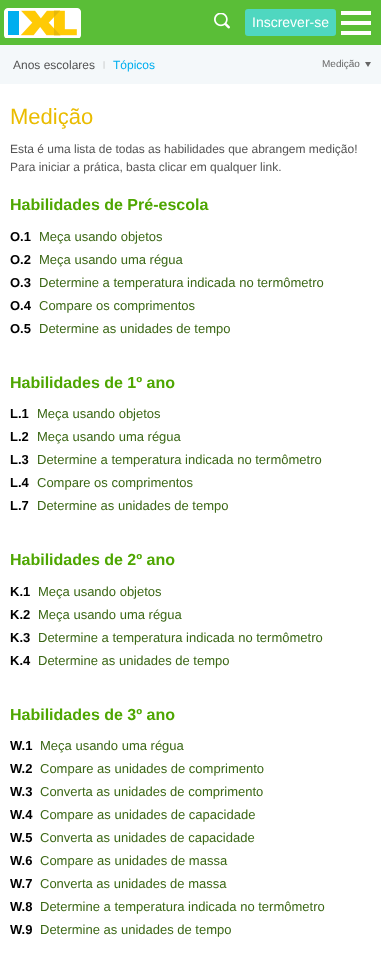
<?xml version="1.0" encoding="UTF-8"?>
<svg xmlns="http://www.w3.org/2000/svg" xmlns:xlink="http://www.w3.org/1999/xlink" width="381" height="960">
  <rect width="100%" height="100%" fill="#ffffff" />
  <rect width="381" height="45" fill="#5abe37" />
  <image x="4" y="8" width="77" height="30" xlink:href="image1.png" />
  <image x="214" y="13" width="16" height="16" xlink:href="image2.png" />
  <rect x="245" y="9" width="91" height="27" rx="3" fill="#4fd7c0" />
  <rect x="341" y="31" width="30" height="4" fill="#ffffff" />
  <rect x="341" y="21" width="30" height="4" fill="#ffffff" />
  <rect x="341" y="11" width="30" height="4" fill="#ffffff" />
  <rect y="45" width="381" height="39" fill="#f4f8fa" />
  <path d="M 365 62 h 6 l -3 5 z" fill="#666666" />
  <text x="252" y="27" style="font-family: Liberation Sans; font-size: 14px; fill: #ffffff">Inscrever-se</text>
  <text x="13" y="69" style="font-family: Liberation Sans; font-size: 12px; fill: #545454">Anos escolares</text>
  <text x="103" y="67" style="font-family: Liberation Sans; font-size: 8px; fill: #bcbcbc">|</text>
  <text x="113" y="69" style="font-family: Liberation Sans; font-size: 12px; fill: #00aeef">Tópicos</text>
  <text x="322" y="67" style="font-family: Liberation Sans; font-size: 10px; fill: #666666">Medição</text>
  <text x="10" y="124" style="font-family: Liberation Sans; font-size: 22px; fill: #eabc00">Medição</text>
  <text x="10" y="153" style="font-family: Liberation Sans; font-size: 12px; fill: #545454">Esta é uma lista de todas as habilidades que abrangem medição!</text>
  <text x="10" y="171" style="font-family: Liberation Sans; font-size: 12px; fill: #545454">Para iniciar a prática, basta clicar em qualquer link.</text>
  <text x="10" y="210" style="font-family: Liberation Sans; font-size: 16px; font-weight: bold; fill: #4ea601">Habilidades de Pré-escola</text>
  <text x="10" y="241" style="font-family: Liberation Sans; font-size: 13px; font-weight: bold; fill: #000000">O.1</text>
  <text x="39" y="241" style="font-family: Liberation Sans; font-size: 13px; fill: #3b6715">Meça usando objetos</text>
  <text x="10" y="264" style="font-family: Liberation Sans; font-size: 13px; font-weight: bold; fill: #000000">O.2</text>
  <text x="39" y="264" style="font-family: Liberation Sans; font-size: 13px; fill: #3b6715">Meça usando uma régua</text>
  <text x="10" y="287" style="font-family: Liberation Sans; font-size: 13px; font-weight: bold; fill: #000000">O.3</text>
  <text x="39" y="287" style="font-family: Liberation Sans; font-size: 13px; fill: #3b6715">Determine a temperatura indicada no termômetro</text>
  <text x="10" y="310" style="font-family: Liberation Sans; font-size: 13px; font-weight: bold; fill: #000000">O.4</text>
  <text x="39" y="310" style="font-family: Liberation Sans; font-size: 13px; fill: #3b6715">Compare os comprimentos</text>
  <text x="10" y="333" style="font-family: Liberation Sans; font-size: 13px; font-weight: bold; fill: #000000">O.5</text>
  <text x="39" y="333" style="font-family: Liberation Sans; font-size: 13px; fill: #3b6715">Determine as unidades de tempo</text>
  <text x="10" y="388" style="font-family: Liberation Sans; font-size: 16px; font-weight: bold; fill: #4ea601">Habilidades de 1º ano</text>
  <text x="10" y="418" style="font-family: Liberation Sans; font-size: 13px; font-weight: bold; fill: #000000">L.1</text>
  <text x="37" y="418" style="font-family: Liberation Sans; font-size: 13px; fill: #3b6715">Meça usando objetos</text>
  <text x="10" y="441" style="font-family: Liberation Sans; font-size: 13px; font-weight: bold; fill: #000000">L.2</text>
  <text x="37" y="441" style="font-family: Liberation Sans; font-size: 13px; fill: #3b6715">Meça usando uma régua</text>
  <text x="10" y="464" style="font-family: Liberation Sans; font-size: 13px; font-weight: bold; fill: #000000">L.3</text>
  <text x="37" y="464" style="font-family: Liberation Sans; font-size: 13px; fill: #3b6715">Determine a temperatura indicada no termômetro</text>
  <text x="10" y="487" style="font-family: Liberation Sans; font-size: 13px; font-weight: bold; fill: #000000">L.4</text>
  <text x="37" y="487" style="font-family: Liberation Sans; font-size: 13px; fill: #3b6715">Compare os comprimentos</text>
  <text x="10" y="510" style="font-family: Liberation Sans; font-size: 13px; font-weight: bold; fill: #000000">L.7</text>
  <text x="37" y="510" style="font-family: Liberation Sans; font-size: 13px; fill: #3b6715">Determine as unidades de tempo</text>
  <text x="10" y="565" style="font-family: Liberation Sans; font-size: 16px; font-weight: bold; fill: #4ea601">Habilidades de 2º ano</text>
  <text x="10" y="596" style="font-family: Liberation Sans; font-size: 13px; font-weight: bold; fill: #000000">K.1</text>
  <text x="38" y="596" style="font-family: Liberation Sans; font-size: 13px; fill: #3b6715">Meça usando objetos</text>
  <text x="10" y="619" style="font-family: Liberation Sans; font-size: 13px; font-weight: bold; fill: #000000">K.2</text>
  <text x="38" y="619" style="font-family: Liberation Sans; font-size: 13px; fill: #3b6715">Meça usando uma régua</text>
  <text x="10" y="642" style="font-family: Liberation Sans; font-size: 13px; font-weight: bold; fill: #000000">K.3</text>
  <text x="38" y="642" style="font-family: Liberation Sans; font-size: 13px; fill: #3b6715">Determine a temperatura indicada no termômetro</text>
  <text x="10" y="665" style="font-family: Liberation Sans; font-size: 13px; font-weight: bold; fill: #000000">K.4</text>
  <text x="38" y="665" style="font-family: Liberation Sans; font-size: 13px; fill: #3b6715">Determine as unidades de tempo</text>
  <text x="10" y="720" style="font-family: Liberation Sans; font-size: 16px; font-weight: bold; fill: #4ea601">Habilidades de 3º ano</text>
  <text x="10" y="750" style="font-family: Liberation Sans; font-size: 13px; font-weight: bold; fill: #000000">W.1</text>
  <text x="40" y="750" style="font-family: Liberation Sans; font-size: 13px; fill: #3b6715">Meça usando uma régua</text>
  <text x="10" y="773" style="font-family: Liberation Sans; font-size: 13px; font-weight: bold; fill: #000000">W.2</text>
  <text x="40" y="773" style="font-family: Liberation Sans; font-size: 13px; fill: #3b6715">Compare as unidades de comprimento</text>
  <text x="10" y="796" style="font-family: Liberation Sans; font-size: 13px; font-weight: bold; fill: #000000">W.3</text>
  <text x="40" y="796" style="font-family: Liberation Sans; font-size: 13px; fill: #3b6715">Converta as unidades de comprimento</text>
  <text x="10" y="819" style="font-family: Liberation Sans; font-size: 13px; font-weight: bold; fill: #000000">W.4</text>
  <text x="40" y="819" style="font-family: Liberation Sans; font-size: 13px; fill: #3b6715">Compare as unidades de capacidade</text>
  <text x="10" y="842" style="font-family: Liberation Sans; font-size: 13px; font-weight: bold; fill: #000000">W.5</text>
  <text x="40" y="842" style="font-family: Liberation Sans; font-size: 13px; fill: #3b6715">Converta as unidades de capacidade</text>
  <text x="10" y="865" style="font-family: Liberation Sans; font-size: 13px; font-weight: bold; fill: #000000">W.6</text>
  <text x="40" y="865" style="font-family: Liberation Sans; font-size: 13px; fill: #3b6715">Compare as unidades de massa</text>
  <text x="10" y="888" style="font-family: Liberation Sans; font-size: 13px; font-weight: bold; fill: #000000">W.7</text>
  <text x="40" y="888" style="font-family: Liberation Sans; font-size: 13px; fill: #3b6715">Converta as unidades de massa</text>
  <text x="10" y="911" style="font-family: Liberation Sans; font-size: 13px; font-weight: bold; fill: #000000">W.8</text>
  <text x="40" y="911" style="font-family: Liberation Sans; font-size: 13px; fill: #3b6715">Determine a temperatura indicada no termômetro</text>
  <text x="10" y="934" style="font-family: Liberation Sans; font-size: 13px; font-weight: bold; fill: #000000">W.9</text>
  <text x="40" y="934" style="font-family: Liberation Sans; font-size: 13px; fill: #3b6715">Determine as unidades de tempo</text>
</svg>
